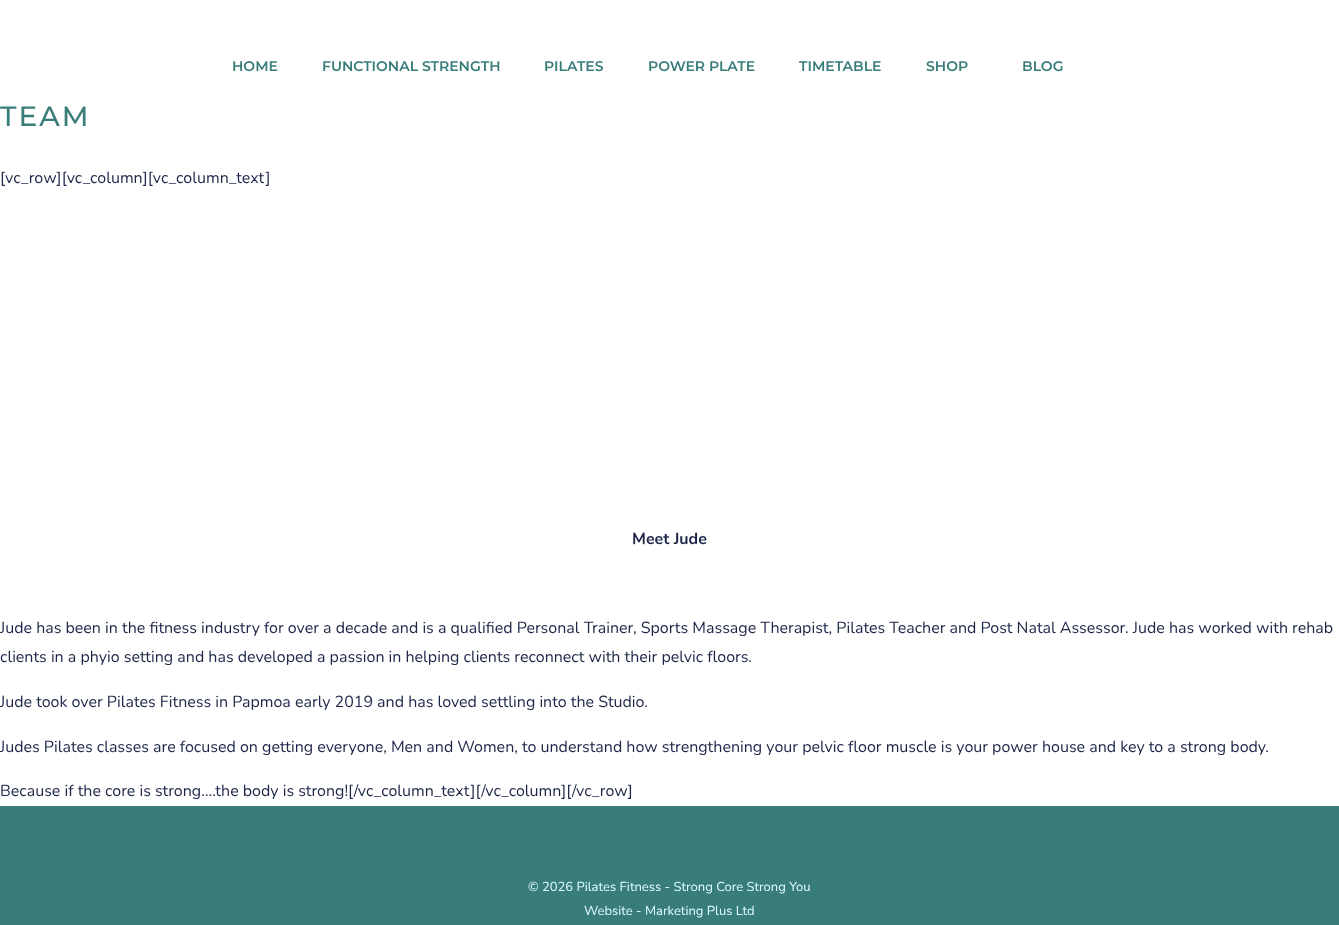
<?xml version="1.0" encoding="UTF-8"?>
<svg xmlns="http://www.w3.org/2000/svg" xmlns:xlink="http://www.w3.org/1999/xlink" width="1339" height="925">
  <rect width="100%" height="100%" fill="#ffffff" />
  <rect y="806" width="1339" height="119" fill="#387d7a" />
  <text x="232" y="71" style="font-family: Montserrat; font-size: 14px; font-weight: 600; fill: #387d7a">HOME</text>
  <text x="322" y="71" style="font-family: Montserrat; font-size: 14px; font-weight: 600; fill: #387d7a">FUNCTIONAL STRENGTH</text>
  <text x="544" y="71" style="font-family: Montserrat; font-size: 14px; font-weight: 600; fill: #387d7a">PILATES</text>
  <text x="648" y="71" style="font-family: Montserrat; font-size: 14px; font-weight: 600; fill: #387d7a">POWER PLATE</text>
  <text x="799" y="71" style="font-family: Montserrat; font-size: 14px; font-weight: 600; fill: #387d7a">TIMETABLE</text>
  <text x="926" y="71" style="font-family: Montserrat; font-size: 14px; font-weight: 600; fill: #387d7a">SHOP</text>
  <text x="1022" y="71" style="font-family: Montserrat; font-size: 14px; font-weight: 600; fill: #387d7a">BLOG</text>
  <text x="0" y="126" style="font-family: Montserrat; font-size: 28px; font-weight: 500; letter-spacing: 2px; fill: #387d7a">TEAM</text>
  <text x="0" y="183" style="font-family: Nunito; font-size: 16px; fill: #1e2749">[vc_row][vc_column][vc_column_text]</text>
  <text x="632" y="544" style="font-family: Nunito; font-size: 16px; font-weight: bold; fill: #1e2749">Meet Jude</text>
  <text x="0" y="633" style="font-family: Nunito; font-size: 16px; fill: #1e2749">Jude has been in the fitness industry for over a decade and is a qualified Personal Trainer, Sports Massage Therapist, Pilates Teacher and Post Natal Assessor. Jude has worked with rehab</text>
  <text x="0" y="662" style="font-family: Nunito; font-size: 16px; fill: #1e2749">clients in a phyio setting and has developed a passion in helping clients reconnect with their pelvic floors.</text>
  <text x="0" y="707" style="font-family: Nunito; font-size: 16px; fill: #1e2749">Jude took over Pilates Fitness in Papmoa early 2019 and has loved settling into the Studio.</text>
  <text x="0" y="752" style="font-family: Nunito; font-size: 16px; fill: #1e2749">Judes Pilates classes are focused on getting everyone, Men and Women, to understand how strengthening your pelvic floor muscle is your power house and key to a strong body.</text>
  <text x="0" y="796" style="font-family: Nunito; font-size: 16px; fill: #1e2749">Because if the core is strong….the body is strong![/vc_column_text][/vc_column][/vc_row]</text>
  <text x="528" y="891" style="font-family: Nunito; font-size: 13px; fill: #e2fdff">© 2026 Pilates Fitness - Strong Core Strong You</text>
  <text x="584" y="915" style="font-family: Nunito; font-size: 13px; fill: #e2fdff">Website - Marketing Plus Ltd</text>
</svg>
